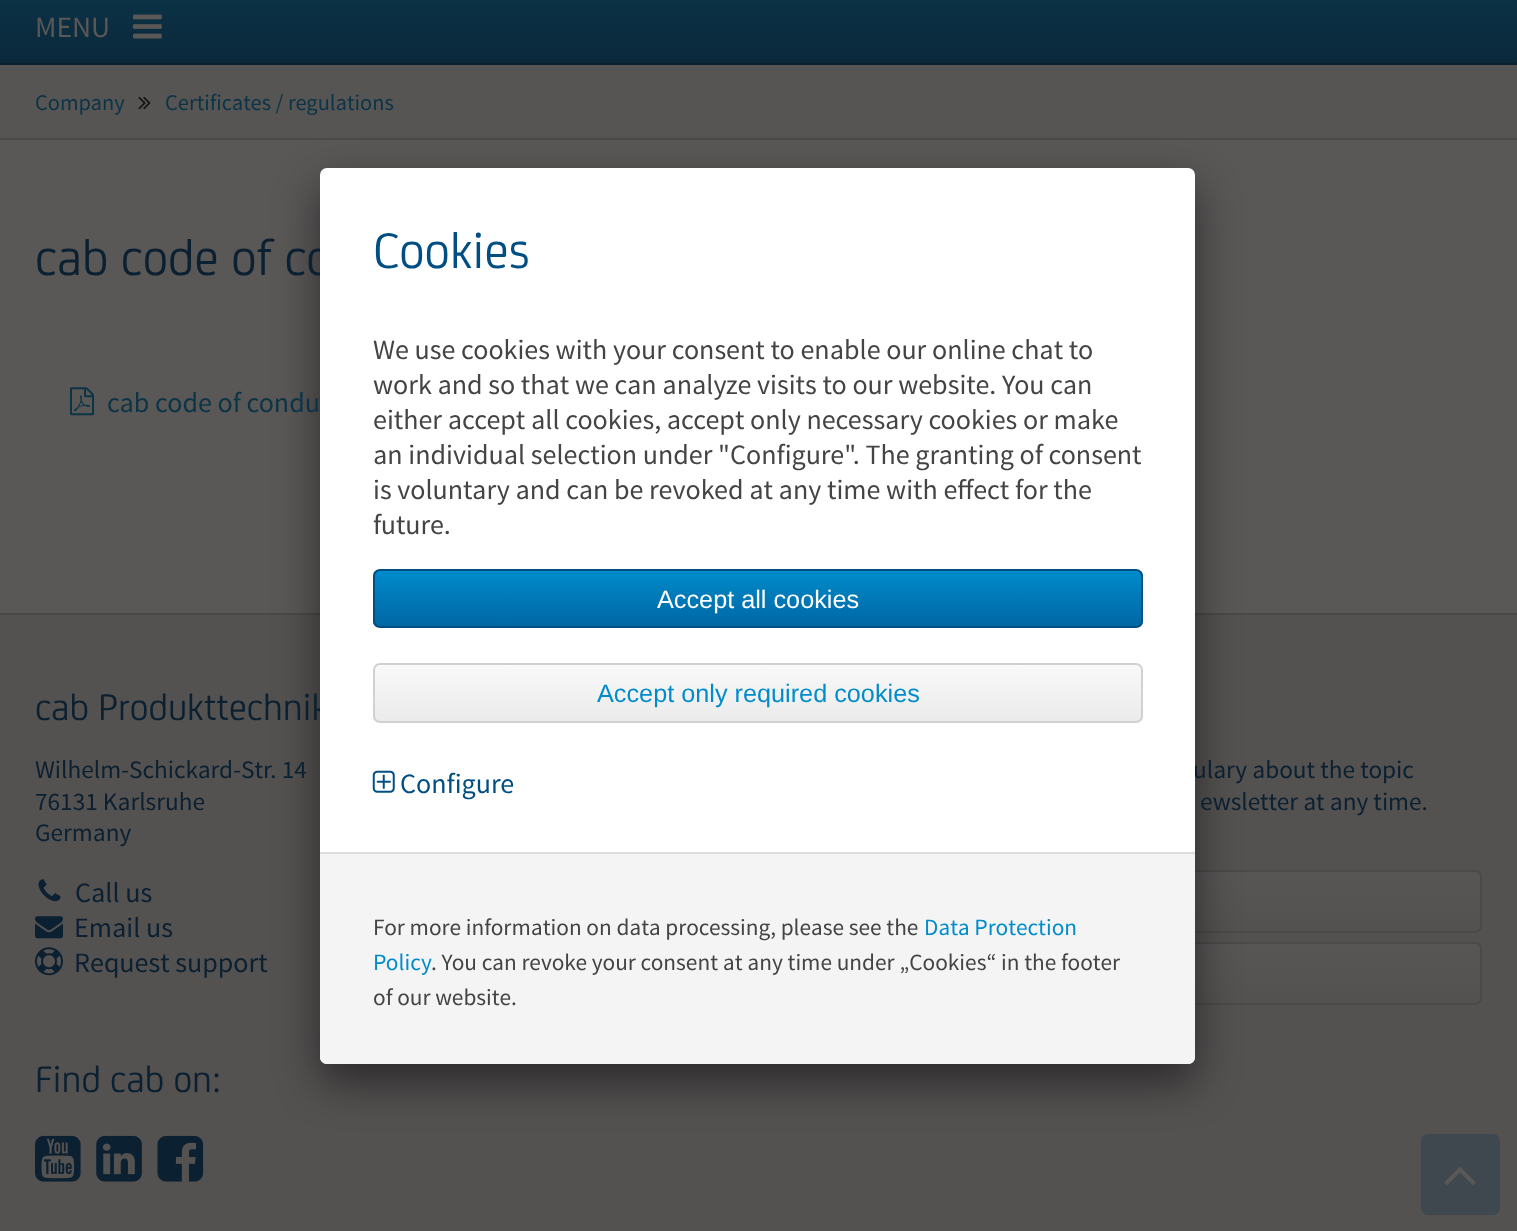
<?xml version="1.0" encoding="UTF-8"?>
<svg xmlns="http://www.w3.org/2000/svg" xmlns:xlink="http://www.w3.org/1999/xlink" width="1517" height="1231">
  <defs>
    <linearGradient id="g1" gradientUnits="userSpaceOnUse" x1="759" y1="-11" x2="759" y2="63"><stop offset="0" stop-color="#0b3347" /><stop offset="1" stop-color="#0b283b" /></linearGradient>
    <clipPath id="clip1"><rect x="795" y="870" width="687" height="63" rx="7" /></clipPath>
    <linearGradient id="g2" gradientUnits="userSpaceOnUse" x1="1138" y1="872" x2="1138" y2="931"><stop offset="0" stop-color="#585555" /><stop offset="1" stop-color="#545151" /></linearGradient>
    <clipPath id="clip2"><rect x="795" y="942" width="687" height="63" rx="7" /></clipPath>
    <linearGradient id="g3" gradientUnits="userSpaceOnUse" x1="1138" y1="943" x2="1138" y2="1003"><stop offset="0" stop-color="#585555" /><stop offset="1" stop-color="#545151" /></linearGradient>
    <clipPath id="clip3"><rect x="373" y="569" width="770" height="59" rx="7" /></clipPath>
    <linearGradient id="g4" gradientUnits="userSpaceOnUse" x1="758" y1="571" x2="758" y2="627"><stop offset="0" stop-color="#008bca" /><stop offset="1" stop-color="#0066a4" /></linearGradient>
    <clipPath id="clip4"><rect x="373" y="663" width="770" height="60" rx="7" /></clipPath>
    <linearGradient id="g5" gradientUnits="userSpaceOnUse" x1="758" y1="665" x2="758" y2="721"><stop offset="0" stop-color="#f9f9f9" /><stop offset="1" stop-color="#ebebeb" /></linearGradient>
  </defs>
  <rect width="100%" height="100%" fill="#5a5757" />
  <rect width="1517" height="63" fill="url(#g1)" />
  <rect y="63" width="1517" height="2" fill="#0b2031" />
  <image x="133" y="14" width="29" height="25" xlink:href="image1.png" />
  <rect y="65" width="1517" height="73" fill="#575454" />
  <rect y="138" width="1517" height="2" fill="#4a4848" />
  <image x="138" y="96" width="13" height="14" xlink:href="image2.png" />
  <image x="70" y="387" width="24" height="29" xlink:href="image3.png" />
  <rect y="615" width="1517" height="616" fill="#545151" />
  <rect y="613" width="1517" height="2" fill="#4b4848" />
  <image x="38" y="879" width="23" height="23" xlink:href="image4.png" />
  <image x="35" y="916" width="28" height="23" xlink:href="image5.png" />
  <image x="35" y="947" width="28" height="29" xlink:href="image6.png" />
  <g clip-path="url(#clip1)">
    <rect x="1195" y="872" width="287" height="59" fill="url(#g2)" />
  </g>
  <rect x="796" y="871" width="685" height="61" rx="6" fill="none" stroke="#4c4949" stroke-width="2" />
  <g clip-path="url(#clip2)">
    <rect x="1195" y="943" width="287" height="60" fill="url(#g3)" />
  </g>
  <rect x="796" y="943" width="685" height="61" rx="6" fill="none" stroke="#4c4949" stroke-width="2" />
  <image x="35" y="1135" width="46" height="47" xlink:href="image7.png" />
  <image x="96" y="1135" width="46" height="47" xlink:href="image8.png" />
  <image x="157" y="1135" width="47" height="47" xlink:href="image9.png" />
  <rect x="320" y="186" width="875" height="896" rx="7" fill="#000000" fill-opacity="0.5" filter="blur(22px)" />
  <rect x="1421" y="1134" width="79" height="81" rx="7" fill="#3e484e" />
  <image x="1444" y="1167" width="32" height="18" xlink:href="image11.png" />
  <text x="35" y="37" style="font-family: Source Sans Pro; font-size: 29.5px; fill: #5a5757">MENU</text>
  <text x="35" y="110" style="font-family: Source Sans Pro; font-size: 22.4px; fill: #0b3447">Company</text>
  <text x="165" y="110" style="font-family: Source Sans Pro; font-size: 22.4px; fill: #0b3447">Certificates / regulations</text>
  <text x="35" y="275" style="font-family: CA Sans; font-size: 53.25px; fill: #0b2031">cab code of co</text>
  <text x="107" y="412" style="font-family: Source Sans Pro; font-size: 28px; fill: #0b3447">cab code of condu</text>
  <text x="35" y="720" style="font-family: CA Sans; font-size: 39.25px; fill: #0b2031">cab Produkttechnik</text>
  <text x="35" y="778" style="font-family: Source Sans Pro; font-size: 25.25px; fill: #0b2031">Wilhelm-Schickard-Str. 14</text>
  <text x="35" y="810" style="font-family: Source Sans Pro; font-size: 25.25px; fill: #0b2031">76131 Karlsruhe</text>
  <text x="35" y="841" style="font-family: Source Sans Pro; font-size: 25.25px; fill: #0b2031">Germany</text>
  <text x="75" y="902" style="font-family: Source Sans Pro; font-size: 28px; fill: #0b2031">Call us</text>
  <text x="74" y="937" style="font-family: Source Sans Pro; font-size: 28px; fill: #0b2031">Email us</text>
  <text x="74" y="972" style="font-family: Source Sans Pro; font-size: 28px; fill: #0b2031">Request support</text>
  <text x="1193" y="778" style="font-family: Source Sans Pro; font-size: 25.25px; fill: #0b2031">ulary about the topic</text>
  <text x="1200" y="810" style="font-family: Source Sans Pro; font-size: 25.25px; fill: #0b2031">ewsletter at any time.</text>
  <text x="35" y="1092" style="font-family: CA Sans; font-size: 39.25px; fill: #0b2031">Find cab on:</text>
  <rect x="320" y="168" width="875" height="896" rx="7" fill="#ffffff" />
  <text x="373" y="268" style="font-family: CA Sans; font-size: 53.25px; fill: #004e82">Cookies</text>
  <text x="373" y="359" style="font-family: Source Sans Pro; font-size: 28px; fill: #444444">We use cookies with your consent to enable our online chat to</text>
  <text x="373" y="394" style="font-family: Source Sans Pro; font-size: 28px; fill: #444444">work and so that we can analyze visits to our website. You can</text>
  <text x="373" y="429" style="font-family: Source Sans Pro; font-size: 28px; fill: #444444">either accept all cookies, accept only necessary cookies or make</text>
  <text x="373" y="464" style="font-family: Source Sans Pro; font-size: 28px; fill: #444444">an individual selection under "Configure". The granting of consent</text>
  <text x="373" y="499" style="font-family: Source Sans Pro; font-size: 28px; fill: #444444">is voluntary and can be revoked at any time with effect for the</text>
  <text x="373" y="534" style="font-family: Source Sans Pro; font-size: 28px; fill: #444444">future.</text>
  <g clip-path="url(#clip3)">
    <rect x="373" y="571" width="770" height="56" fill="url(#g4)" />
  </g>
  <rect x="374" y="570" width="768" height="57" rx="6" fill="none" stroke="#004e82" stroke-width="2" />
  <text x="657" y="608" style="font-family: Liberation Sans; font-size: 25.25px; fill: #ffffff">Accept all cookies</text>
  <g clip-path="url(#clip4)">
    <rect x="373" y="665" width="770" height="56" fill="url(#g5)" />
  </g>
  <rect x="374" y="664" width="768" height="58" rx="6" fill="none" stroke="#d1d1d1" stroke-width="2" />
  <text x="597" y="702" style="font-family: Liberation Sans; font-size: 25.25px; fill: #008ccb">Accept only required cookies</text>
  <image x="372" y="770" width="23" height="23" xlink:href="image10.png" />
  <text x="400" y="793" style="font-family: Source Sans Pro; font-size: 28px; fill: #004e82">Configure</text>
  <path d="M 320 852 h 875 v 205 c 0 4 -3 7 -7 7 h -861 c -4 0 -7 -3 -7 -7 z" fill="#f4f4f4" />
  <rect x="320" y="852" width="875" height="2" fill="#dcdcdc" />
  <text x="373" y="935" style="font-family: Source Sans Pro; font-size: 23.3px; fill: #444444">For more information on data processing, please see the</text>
  <text x="924" y="935" style="font-family: Source Sans Pro; font-size: 23.3px; fill: #008ccb">Data Protection</text>
  <text x="373" y="970" style="font-family: Source Sans Pro; font-size: 23.3px; fill: #008ccb">Policy</text>
  <text x="431" y="970" style="font-family: Source Sans Pro; font-size: 23.3px; fill: #444444">. You can revoke your consent at any time under „Cookies“ in the footer</text>
  <text x="373" y="1005" style="font-family: Source Sans Pro; font-size: 23.3px; fill: #444444">of our website.</text>
</svg>
